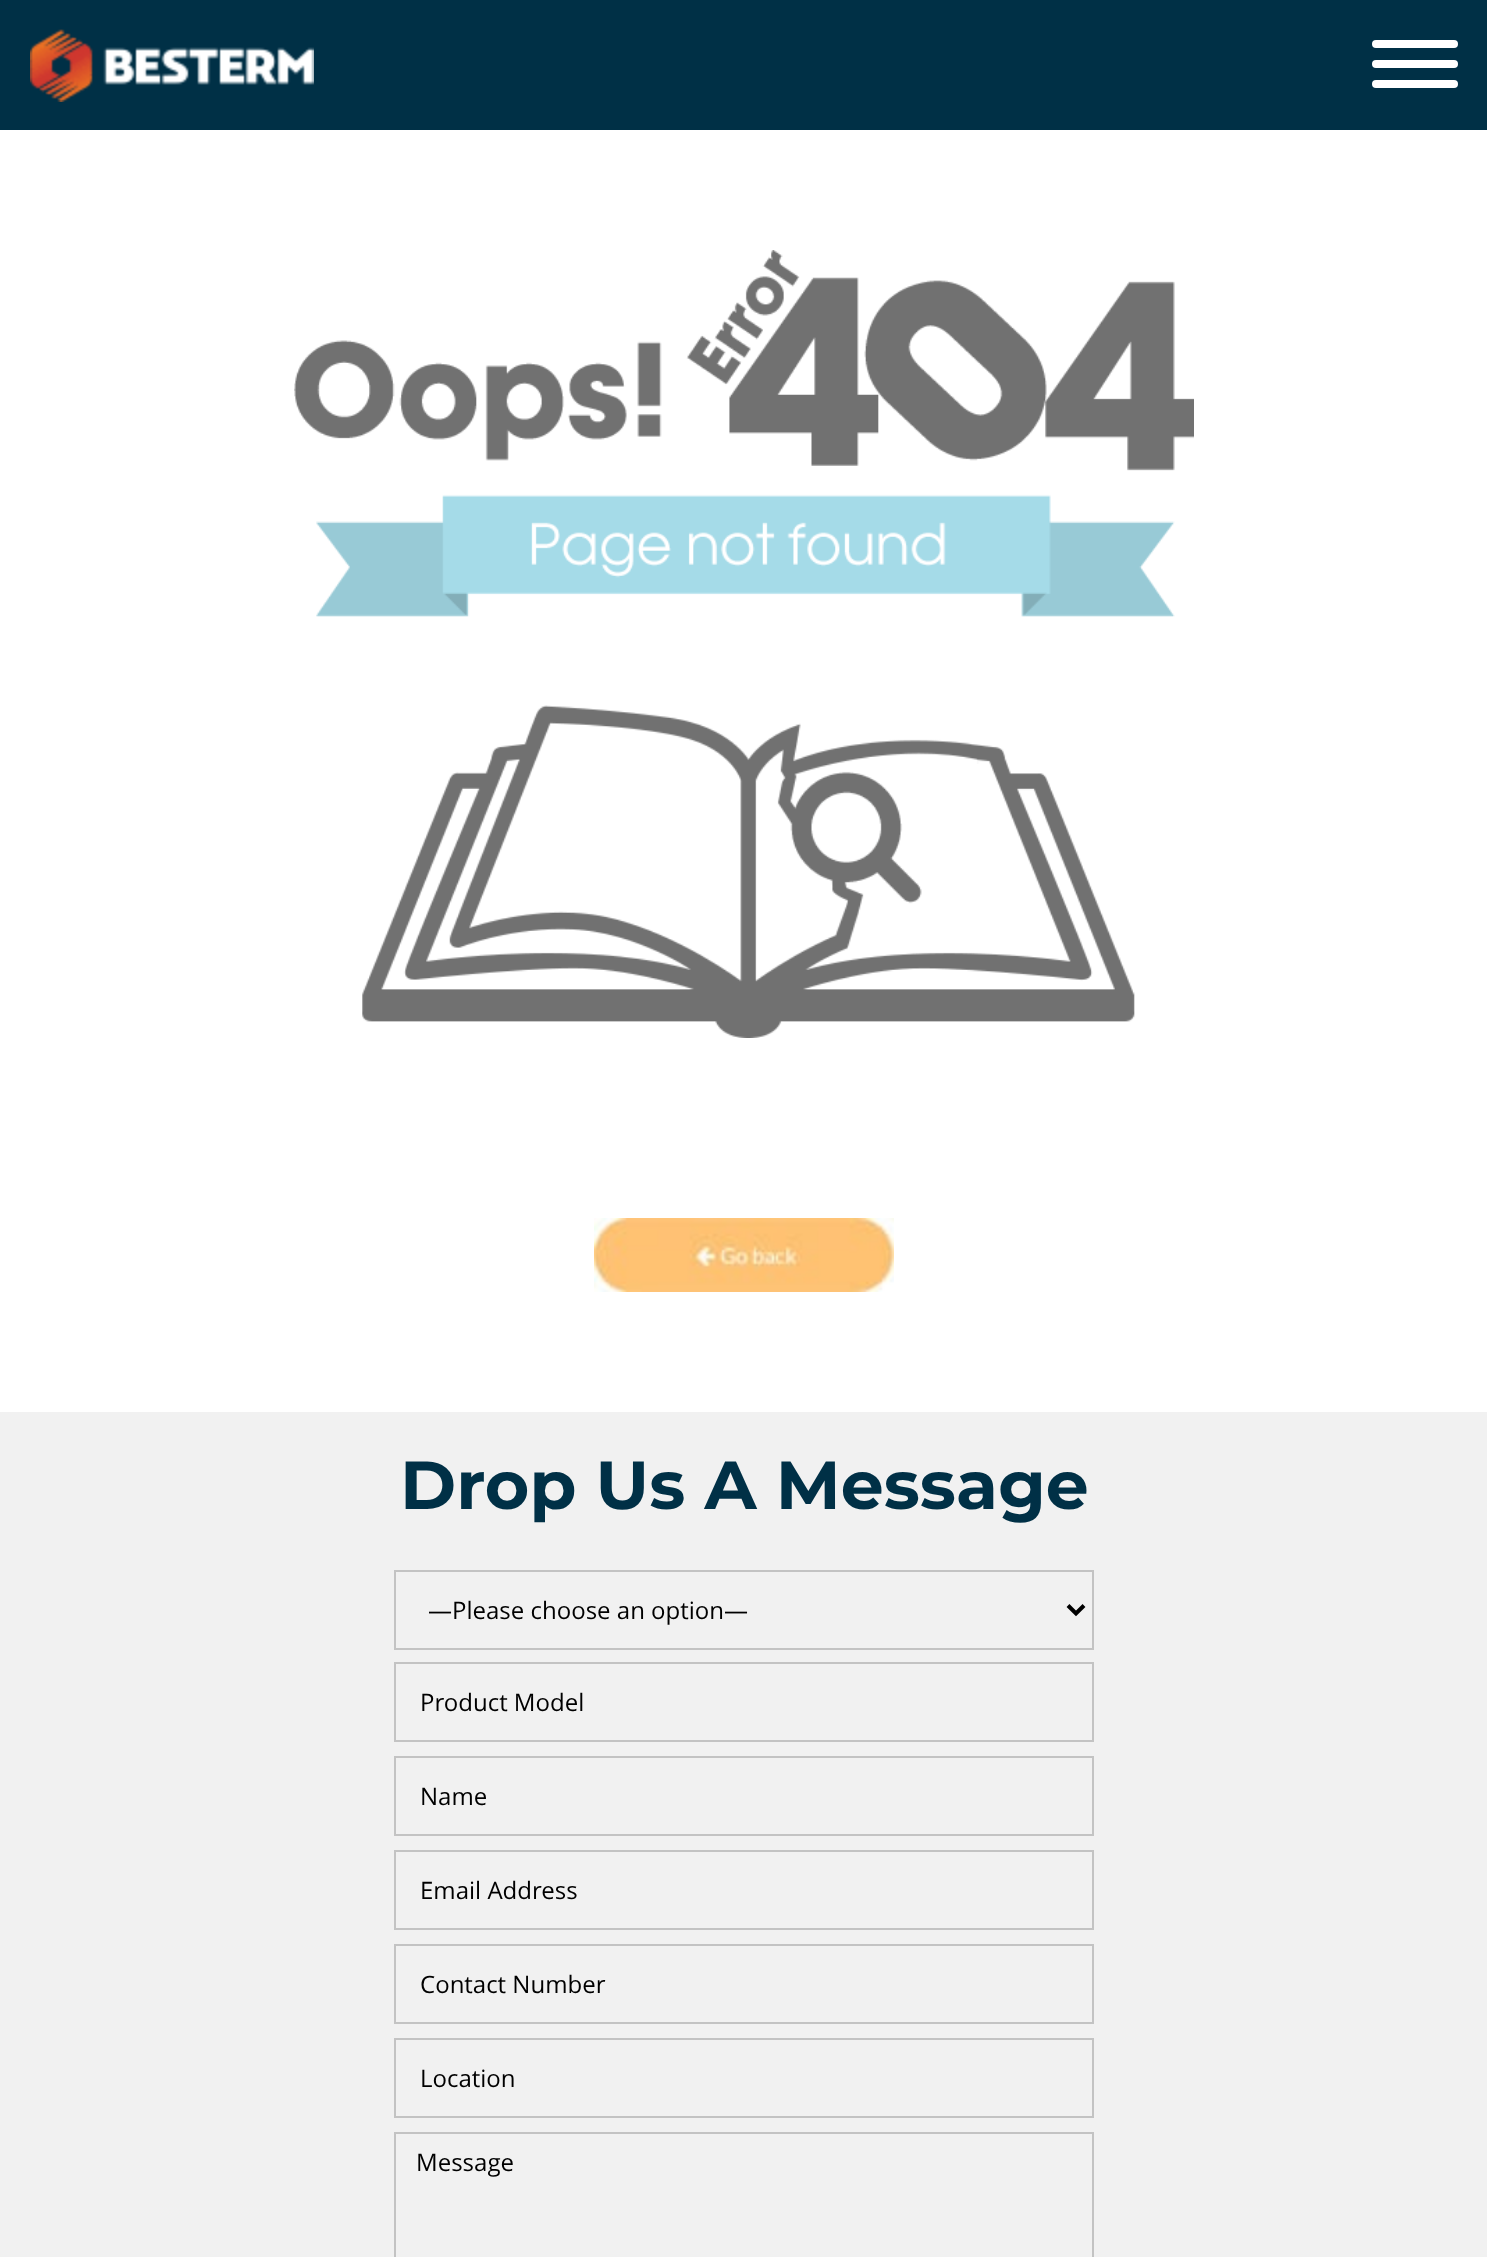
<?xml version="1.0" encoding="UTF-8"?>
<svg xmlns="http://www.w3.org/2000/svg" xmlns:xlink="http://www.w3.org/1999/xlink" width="1487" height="2257">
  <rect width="100%" height="100%" fill="#ffffff" />
  <rect width="1487" height="130" fill="#003046" />
  <image x="30" y="29" width="284" height="73" xlink:href="image1.png" />
  <rect x="1372" y="40" width="86" height="8" rx="4" fill="#ffffff" />
  <rect x="1372" y="60" width="86" height="8" rx="4" fill="#ffffff" />
  <rect x="1372" y="80" width="86" height="8" rx="4" fill="#ffffff" />
  <image x="294" y="250" width="900" height="788" xlink:href="image2.png" />
  <image x="594" y="1218" width="300" height="74" xlink:href="image3.png" />
  <rect y="1412" width="1487" height="845" fill="#f1f1f1" />
  <rect x="395" y="1571" width="698" height="78" fill="none" stroke="#c3c3c3" stroke-width="2" />
  <path d="M 1068 1605.5 l 8 8 l 8 -8" fill="none" stroke="#000000" stroke-width="4" />
  <rect x="395" y="1663" width="698" height="78" fill="none" stroke="#c3c3c3" stroke-width="2" />
  <rect x="395" y="1757" width="698" height="78" fill="none" stroke="#c3c3c3" stroke-width="2" />
  <rect x="395" y="1851" width="698" height="78" fill="none" stroke="#c3c3c3" stroke-width="2" />
  <rect x="395" y="1945" width="698" height="78" fill="none" stroke="#c3c3c3" stroke-width="2" />
  <rect x="395" y="2039" width="698" height="78" fill="none" stroke="#c3c3c3" stroke-width="2" />
  <rect x="395" y="2133" width="698" height="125" fill="none" stroke="#c3c3c3" stroke-width="2" />
  <text x="400" y="1509" style="font-family: Montserrat; font-size: 68px; font-weight: bold; fill: #003046">Drop Us A Message</text>
  <text x="428" y="1619" style="font-family: Open Sans; font-size: 24px; fill: #000000">—Please choose an option—</text>
  <text x="420" y="1711" style="font-family: Open Sans; font-size: 24px; fill: #000000">Product Model</text>
  <text x="420" y="1805" style="font-family: Open Sans; font-size: 24px; fill: #000000">Name</text>
  <text x="420" y="1899" style="font-family: Open Sans; font-size: 24px; fill: #000000">Email Address</text>
  <text x="420" y="1993" style="font-family: Open Sans; font-size: 24px; fill: #000000">Contact Number</text>
  <text x="420" y="2087" style="font-family: Open Sans; font-size: 24px; fill: #000000">Location</text>
  <text x="416" y="2171" style="font-family: Open Sans; font-size: 24px; fill: #000000">Message</text>
</svg>
